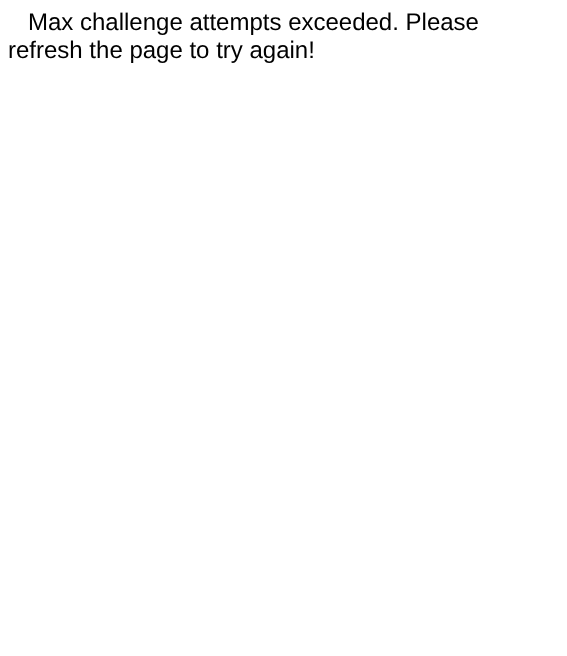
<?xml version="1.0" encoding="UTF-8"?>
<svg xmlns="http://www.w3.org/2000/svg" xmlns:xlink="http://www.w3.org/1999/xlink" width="567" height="656">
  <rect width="100%" height="100%" fill="#ffffff" />
  <text x="28" y="30" style="font-family: Liberation Sans; font-size: 24px; fill: #000000">Max challenge attempts exceeded. Please</text>
  <text x="8" y="58" style="font-family: Liberation Sans; font-size: 24px; fill: #000000">refresh the page to try again!</text>
</svg>
